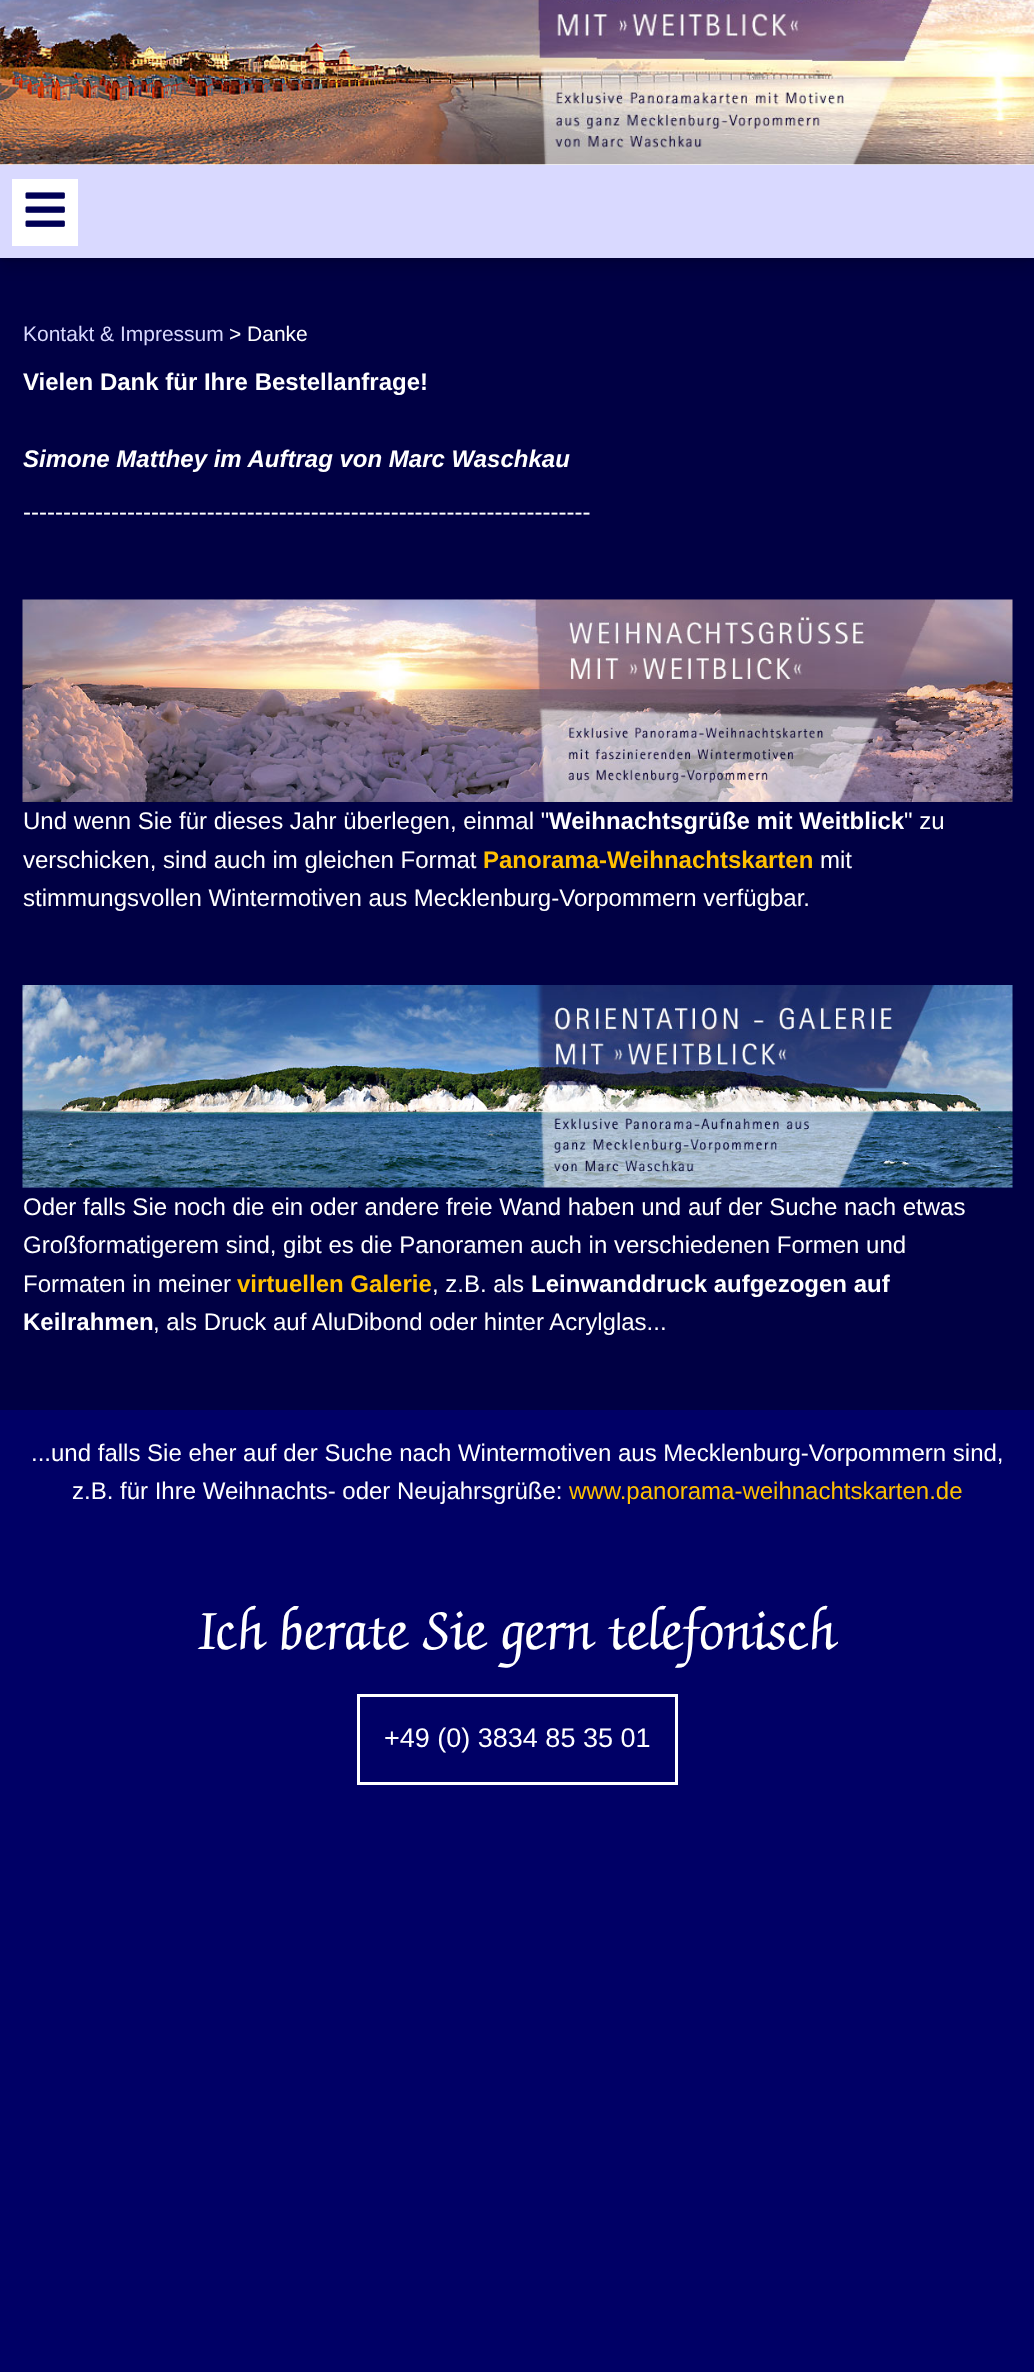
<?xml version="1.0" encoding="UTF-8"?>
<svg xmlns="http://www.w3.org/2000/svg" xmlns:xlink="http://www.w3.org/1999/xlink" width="1034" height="2372">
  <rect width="100%" height="100%" fill="#000066" />
  <rect y="164" width="1034" height="1" fill="#ffffff" />
  <image x="0" y="0" width="1034" height="165" xlink:href="image1.png" />
  <rect y="258" width="1034" height="1152" fill="#000044" />
  <rect y="177" width="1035" height="93" fill="#000000" fill-opacity="0.1" filter="blur(6px)" />
  <rect y="168" width="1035" height="93" fill="#000000" fill-opacity="0.1" filter="blur(1px)" />
  <rect y="165" width="1034" height="93" fill="#d9d9ff" />
  <rect x="12" y="179" width="66" height="67" fill="#ffffff" />
  <image x="25" y="192" width="40" height="35" xlink:href="image2.png" />
  <image x="22" y="599" width="991" height="203" xlink:href="image3.png" />
  <image x="22" y="985" width="991" height="203" xlink:href="image4.png" />
  <rect x="358.5" y="1695.5" width="318" height="88" fill="none" stroke="#ffffff" stroke-width="3" />
  <text x="23" y="341" style="font-family: Liberation Sans; font-size: 21px; fill: #d9d9ff">Kontakt &amp; Impressum</text>
  <text x="229" y="341" style="font-family: Liberation Sans; font-size: 21px; fill: #ffffff">&gt; Danke</text>
  <text x="23" y="390" style="font-family: Liberation Sans; font-size: 24px; font-weight: bold; fill: #ffffff">Vielen Dank für Ihre Bestellanfrage!</text>
  <text x="23" y="467" style="font-family: Liberation Sans; font-size: 24px; font-weight: bold; font-style: italic; fill: #ffffff">Simone Matthey im Auftrag von Marc Waschkau</text>
  <text x="23" y="520" style="font-family: Liberation Sans; font-size: 24px; fill: #ffffff">-----------------------------------------------------------------------</text>
  <text x="23" y="829" style="font-family: Liberation Sans; font-size: 24px; fill: #ffffff">Und wenn Sie für dieses Jahr überlegen, einmal "</text>
  <text x="549" y="829" style="font-family: Liberation Sans; font-size: 24px; font-weight: bold; fill: #ffffff">Weihnachtsgrüße mit Weitblick</text>
  <text x="904" y="829" style="font-family: Liberation Sans; font-size: 24px; fill: #ffffff">" zu</text>
  <text x="23" y="868" style="font-family: Liberation Sans; font-size: 24px; fill: #ffffff">verschicken, sind auch im gleichen Format</text>
  <text x="483" y="868" style="font-family: Liberation Sans; font-size: 24px; font-weight: bold; fill: #ffc000">Panorama-Weihnachtskarten</text>
  <text x="820" y="868" style="font-family: Liberation Sans; font-size: 24px; fill: #ffffff">mit</text>
  <text x="23" y="906" style="font-family: Liberation Sans; font-size: 24px; fill: #ffffff">stimmungsvollen Wintermotiven aus Mecklenburg-Vorpommern verfügbar.</text>
  <text x="23" y="1215" style="font-family: Liberation Sans; font-size: 24px; fill: #ffffff">Oder falls Sie noch die ein oder andere freie Wand haben und auf der Suche nach etwas</text>
  <text x="23" y="1253" style="font-family: Liberation Sans; font-size: 24px; fill: #ffffff">Großformatigerem sind, gibt es die Panoramen auch in verschiedenen Formen und</text>
  <text x="23" y="1292" style="font-family: Liberation Sans; font-size: 24px; fill: #ffffff">Formaten in meiner</text>
  <text x="237" y="1292" style="font-family: Liberation Sans; font-size: 24px; font-weight: bold; fill: #ffc000">virtuellen Galerie</text>
  <text x="432" y="1292" style="font-family: Liberation Sans; font-size: 24px; fill: #ffffff">, z.B. als</text>
  <text x="531" y="1292" style="font-family: Liberation Sans; font-size: 24px; font-weight: bold; fill: #ffffff">Leinwanddruck aufgezogen auf</text>
  <text x="23" y="1330" style="font-family: Liberation Sans; font-size: 24px; font-weight: bold; fill: #ffffff">Keilrahmen</text>
  <text x="153" y="1330" style="font-family: Liberation Sans; font-size: 24px; fill: #ffffff">, als Druck auf AluDibond oder hinter Acrylglas...</text>
  <text x="31" y="1461" style="font-family: Liberation Sans; font-size: 24px; fill: #ffffff">...und falls Sie eher auf der Suche nach Wintermotiven aus Mecklenburg-Vorpommern sind,</text>
  <text x="72" y="1499" style="font-family: Liberation Sans; font-size: 24px; fill: #ffffff">z.B. für Ihre Weihnachts- oder Neujahrsgrüße:</text>
  <text x="569" y="1499" style="font-family: Liberation Sans; font-size: 24px; fill: #ffc000">www.panorama-weihnachtskarten.de</text>
  <text x="199" y="1649" style="font-family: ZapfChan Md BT; font-size: 60px; font-weight: 500; fill: #ffffff">Ich berate Sie gern telefonisch</text>
  <text x="384" y="1747" style="font-family: Liberation Sans; font-size: 27px; fill: #ffffff">+49 (0) 3834 85 35 01</text>
</svg>
